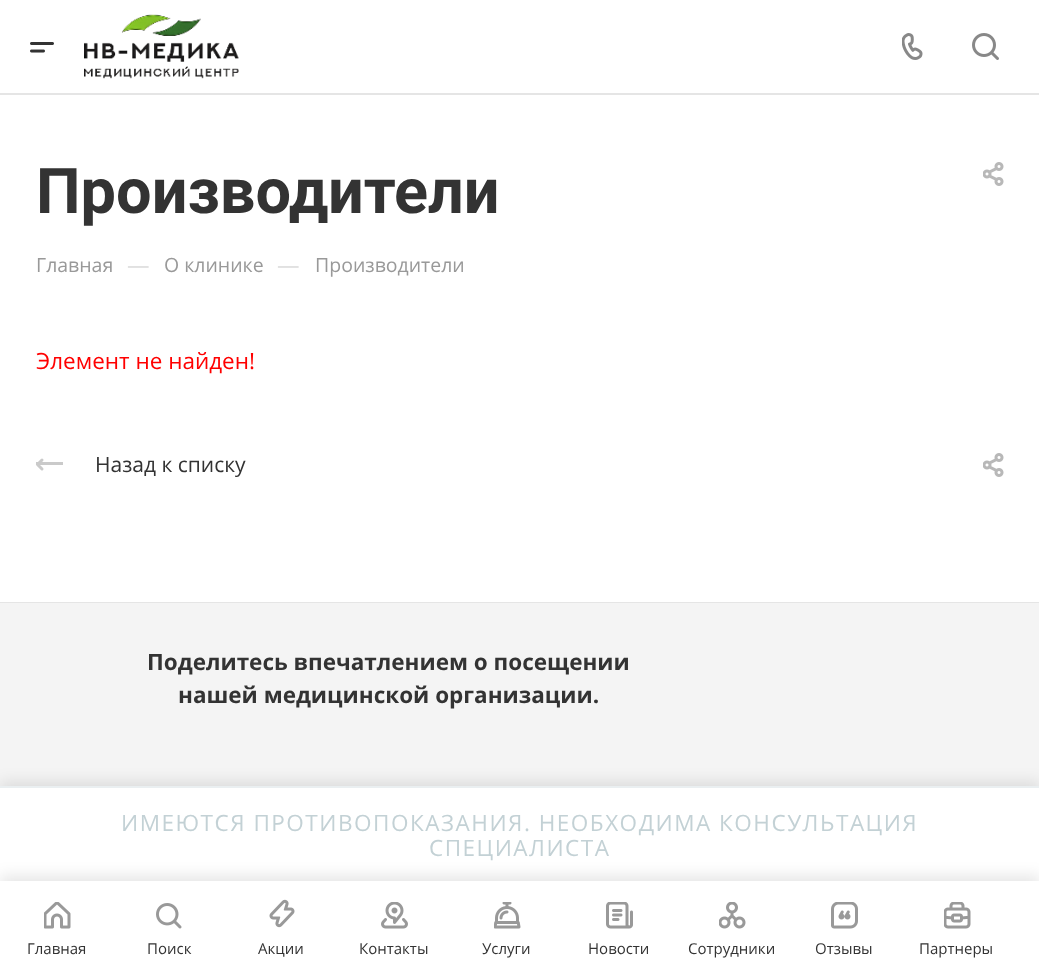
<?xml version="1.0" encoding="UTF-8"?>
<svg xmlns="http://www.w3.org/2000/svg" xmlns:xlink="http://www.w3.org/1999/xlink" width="1039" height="964">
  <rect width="100%" height="100%" fill="#ffffff" />
  <path d="M 0 93 v 2 h 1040 v -93 v 91 z" fill="#e5e5e5" />
  <image x="30" y="42" width="24" height="11" xlink:href="image1.png" />
  <image x="84" y="14" width="155" height="65" xlink:href="image2.png" />
  <image x="902" y="33" width="21" height="27" xlink:href="image3.png" />
  <image x="972" y="33" width="27" height="27" xlink:href="image4.png" />
  <image x="983" y="162" width="21" height="24" xlink:href="image5.png" />
  <path d="M 42 469 l -4.5 -4.5 l 4.5 -4.5" fill="none" stroke="#cacaca" stroke-width="3" stroke-linecap="round" stroke-linejoin="round" />
  <rect x="36" y="462" width="27" height="3" fill="#cacaca" />
  <image x="983" y="453" width="21" height="24" xlink:href="image5.png" />
  <rect y="602" width="1039" height="1" fill="#e5e5e5" />
  <rect y="603" width="1039" height="183" fill="#f4f4f4" />
  <rect y="782" width="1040" height="94" fill="#000000" fill-opacity="0.1" filter="blur(7.5px)" />
  <rect y="788" width="1039" height="93" fill="#ffffff" />
  <rect y="786" width="1039" height="2" fill="#eaeff1" />
  <rect y="876" width="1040" height="84" fill="#000000" fill-opacity="0.1" filter="blur(7.5px)" />
  <rect y="881" width="1039" height="83" fill="#ffffff" />
  <image x="44" y="902" width="27" height="27" xlink:href="image6.png" />
  <image x="156" y="903" width="26" height="26" xlink:href="image7.png" />
  <image x="269" y="899" width="26" height="29" xlink:href="image8.png" />
  <image x="381" y="902" width="27" height="27" xlink:href="image9.png" />
  <image x="494" y="902" width="27" height="27" xlink:href="image10.png" />
  <image x="606" y="902" width="27" height="27" xlink:href="image11.png" />
  <image x="719" y="902" width="27" height="27" xlink:href="image12.png" />
  <image x="831" y="902" width="27" height="27" xlink:href="image13.png" />
  <image x="944" y="902" width="27" height="27" xlink:href="image14.png" />
  <text x="36" y="213" style="font-family: Roboto; font-size: 63px; font-weight: bold; fill: #333333">Производители</text>
  <text x="36" y="272" style="font-family: Open Sans; font-size: 19.5px; fill: #999999">Главная</text>
  <text x="127" y="273" style="font-family: Open Sans; font-size: 22.5px; fill: #dddddd">—</text>
  <text x="164" y="272" style="font-family: Open Sans; font-size: 19.5px; fill: #999999">О клинике</text>
  <text x="277" y="273" style="font-family: Open Sans; font-size: 22.5px; fill: #dddddd">—</text>
  <text x="315" y="272" style="font-family: Open Sans; font-size: 19.5px; fill: #999999">Производители</text>
  <text x="36" y="369" style="font-family: Open Sans; font-size: 22.5px; fill: #ff0000">Элемент не найден!</text>
  <text x="95" y="472" style="font-family: Open Sans; font-size: 21px; fill: #333333">Назад к списку</text>
  <text x="147" y="670" style="font-family: Open Sans; font-size: 22.5px; font-weight: bold; fill: #333333">Поделитесь впечатлением о посещении</text>
  <text x="178" y="703" style="font-family: Open Sans; font-size: 22.5px; font-weight: bold; fill: #333333">нашей медицинской организации.</text>
  <text x="121" y="831" style="font-family: Open Sans; font-size: 22.5px; letter-spacing: 1.5px; fill: #c3d1d5">ИМЕЮТСЯ ПРОТИВОПОКАЗАНИЯ. НЕОБХОДИМА КОНСУЛЬТАЦИЯ</text>
  <text x="429" y="856" style="font-family: Open Sans; font-size: 22.5px; letter-spacing: 1.5px; fill: #c3d1d5">СПЕЦИАЛИСТА</text>
  <text x="27" y="954" style="font-family: Open Sans; font-size: 15px; fill: #333333">Главная</text>
  <text x="147" y="954" style="font-family: Open Sans; font-size: 15px; fill: #333333">Поиск</text>
  <text x="258" y="954" style="font-family: Open Sans; font-size: 15px; fill: #333333">Акции</text>
  <text x="359" y="954" style="font-family: Open Sans; font-size: 15px; fill: #333333">Контакты</text>
  <text x="482" y="954" style="font-family: Open Sans; font-size: 15px; fill: #333333">Услуги</text>
  <text x="588" y="954" style="font-family: Open Sans; font-size: 15px; fill: #333333">Новости</text>
  <text x="688" y="954" style="font-family: Open Sans; font-size: 15px; fill: #333333">Сотрудники</text>
  <text x="815" y="954" style="font-family: Open Sans; font-size: 15px; fill: #333333">Отзывы</text>
  <text x="919" y="954" style="font-family: Open Sans; font-size: 15px; fill: #333333">Партнеры</text>
</svg>
